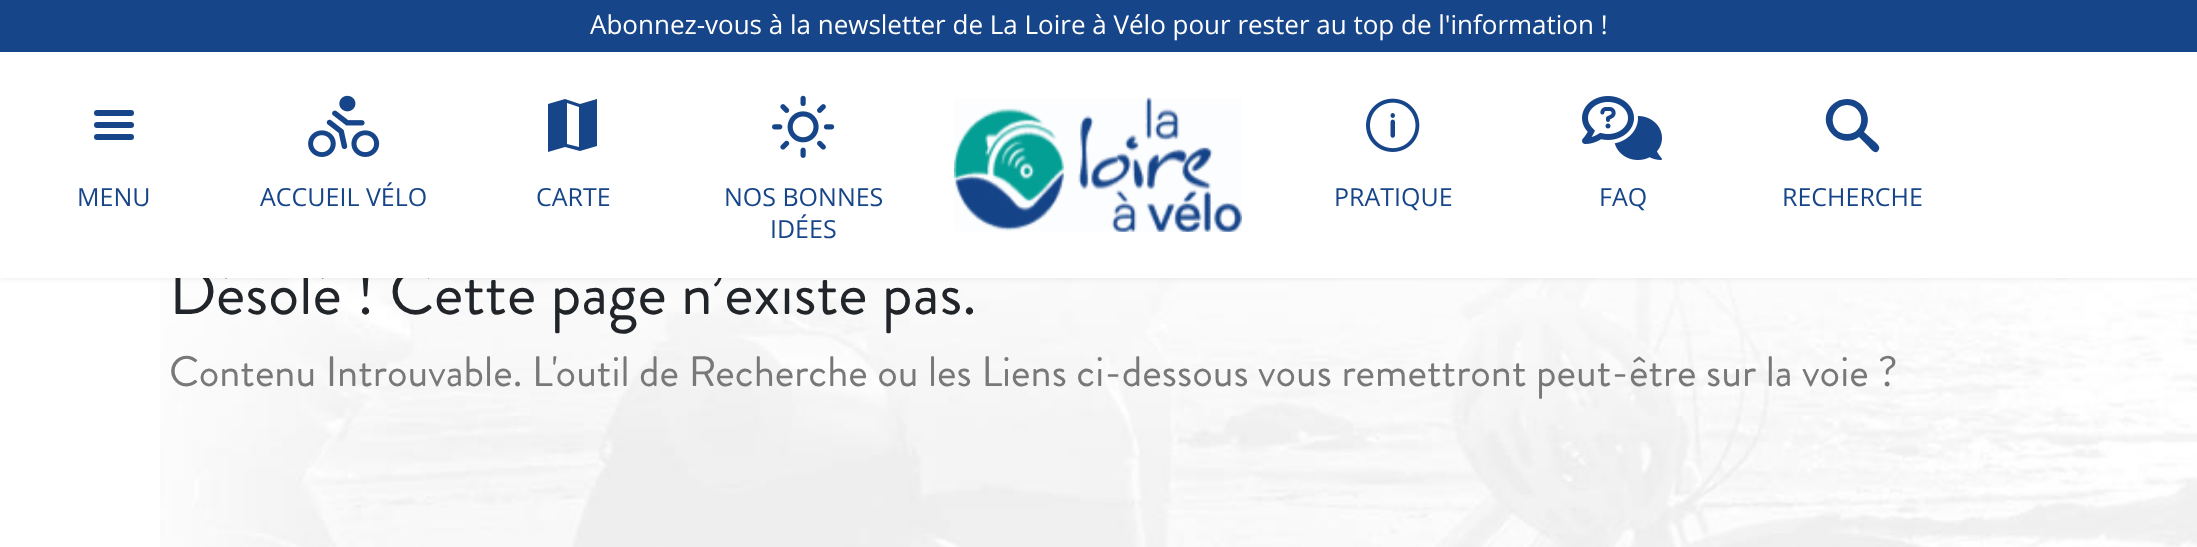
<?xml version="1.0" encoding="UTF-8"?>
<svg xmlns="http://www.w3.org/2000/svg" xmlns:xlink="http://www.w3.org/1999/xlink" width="2197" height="547">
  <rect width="100%" height="100%" fill="#ffffff" />
  <image x="160" y="278" width="2037" height="269" xlink:href="image6.png" />
  <rect y="2" width="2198" height="278" fill="#000000" fill-opacity="0.05" filter="blur(2px)" />
  <rect width="2197" height="52" fill="#174589" />
  <text x="590" y="34" style="font-family: Open Sans; font-size: 26px; fill: #ffffff">Abonnez-vous à la newsletter de La Loire à Vélo pour rester au top de l'information !</text>
  <text x="169" y="314" style="font-family: Brandon Grotesque; font-size: 64px; fill: #212529">Désolé ! Cette page n’existe pas.</text>
  <rect y="52" width="2197" height="226" fill="#ffffff" />
  <rect x="94" y="134" width="40" height="6" rx="3" fill="#174589" />
  <rect x="94" y="122" width="40" height="6" rx="3" fill="#174589" />
  <rect x="94" y="110" width="40" height="6" rx="3" fill="#174589" />
  <text x="1782" y="206" style="font-family: Open Sans; font-size: 25px; fill: #174589">RECHERCHE</text>
  <path d="M 1847 99 c -6 0 -11 2 -15 6 c -18 18 7 46 27 32 l 9 9 c 2 2 7 9 10 5 c 4 -4 -2 -8 -4 -10 l -10 -9 c 10 -14 0 -33 -17 -33 z m 0 6 c 19 1 19 29 0 29 c -19 0 -19 -28 0 -29 z" fill="#174589" />
  <image x="1582" y="96" width="80" height="64" xlink:href="image5.png" />
  <text x="1599" y="206" style="font-family: Open Sans; font-size: 25px; fill: #174589">FAQ</text>
  <text x="1334" y="206" style="font-family: Open Sans; font-size: 25px; fill: #174589">PRATIQUE</text>
  <image x="1366" y="98" width="54" height="54" xlink:href="image4.png" />
  <image x="954" y="97" width="288" height="135" xlink:href="image3.png" />
  <text x="770" y="238" style="font-family: Open Sans; font-size: 25px; fill: #174589">IDÉES</text>
  <text x="724" y="206" style="font-family: Open Sans; font-size: 25px; fill: #174589">NOS BONNES</text>
  <image x="772" y="95" width="63" height="63" xlink:href="image2.png" />
  <text x="536" y="206" style="font-family: Open Sans; font-size: 25px; fill: #174589">CARTE</text>
  <path d="M 597 99 l -17 5 l -15 -5 l -17 5 v 48 l 17 -5 l 15 4 l 17 -5 z m -30 4 l 12 4 v 40 l -12 -3 z" fill="#174589" />
  <text x="260" y="206" style="font-family: Open Sans; font-size: 25px; fill: #174589">ACCUEIL VÉLO</text>
  <image x="308" y="95" width="72" height="62" xlink:href="image1.png" />
  <text x="77" y="206" style="font-family: Open Sans; font-size: 25px; fill: #174589">MENU</text>
  <text x="169" y="386" style="font-family: Brandon Grotesque; font-size: 42.65px; fill: #787878">Contenu Introuvable. L'outil de Recherche ou les Liens ci-dessous vous remettront peut-être sur la voie ?</text>
</svg>
